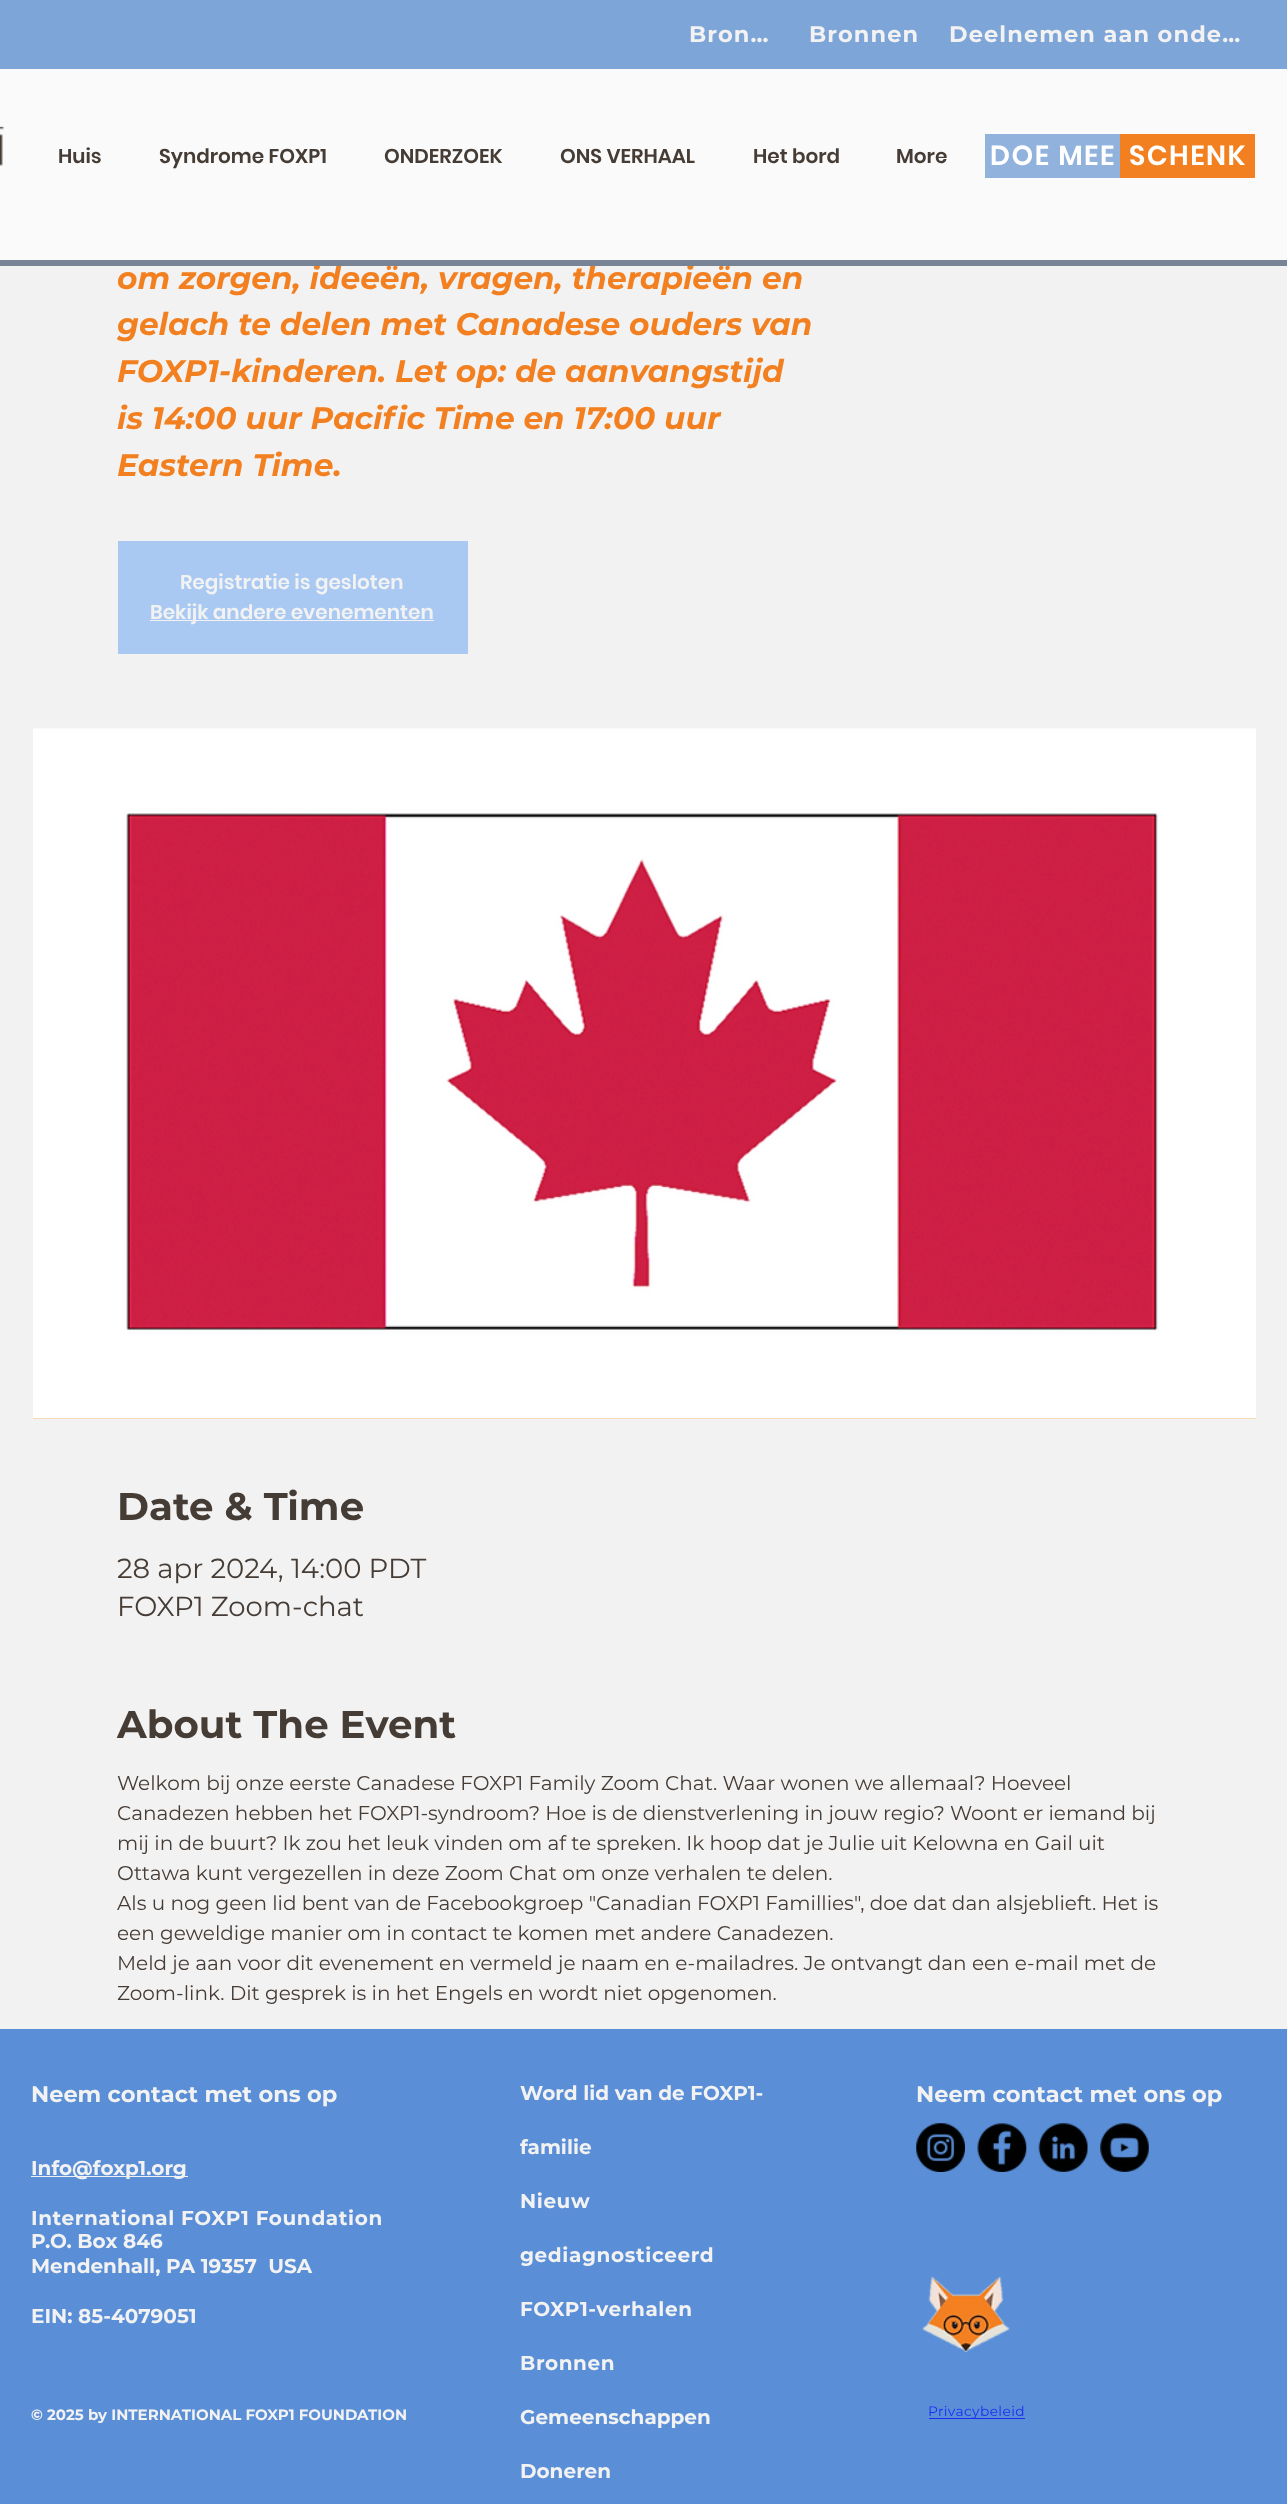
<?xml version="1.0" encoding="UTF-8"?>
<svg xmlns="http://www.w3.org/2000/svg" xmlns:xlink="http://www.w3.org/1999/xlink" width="1287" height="2504">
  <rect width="100%" height="100%" fill="#f2f2f2" />
  <rect width="1287" height="69" fill="#7ea5d7" />
  <rect y="69" width="1287" height="191" fill="#fafafa" />
  <image x="0" y="126" width="4" height="40" xlink:href="image1.png" />
  <rect x="985" y="134" width="135" height="44" fill="#91b2dc" />
  <rect x="1120" y="134" width="135" height="44" fill="#f38020" />
  <rect x="118" y="541" width="350" height="113" fill="#a9c9f3" />
  <rect x="150" y="620" width="284" height="1" fill="#f2f2f2" />
  <rect x="33" y="1418" width="1223" height="1" fill="#f8d8b6" />
  <image x="33" y="728" width="1223" height="691" xlink:href="image2.png" />
  <rect y="2029" width="1287" height="475" fill="#5a8fd7" />
  <image x="916" y="2123" width="49" height="49" xlink:href="image3.png" />
  <image x="977" y="2123" width="50" height="49" xlink:href="image4.png" />
  <image x="1038" y="2123" width="50" height="49" xlink:href="image5.png" />
  <image x="1100" y="2123" width="49" height="49" xlink:href="image6.png" />
  <rect x="31" y="2176" width="157" height="1" fill="#f2f2f2" />
  <image x="922" y="2276" width="88" height="77" xlink:href="image7.png" />
  <rect x="929" y="2418" width="96" height="1" fill="#1d2cf3" />
  <text x="689" y="42" style="font-family: Montserrat; font-size: 22.5px; font-weight: bold; letter-spacing: 1.1px; fill: #f2f2f2">Bron…</text>
  <text x="809" y="42" style="font-family: Montserrat; font-size: 22.5px; font-weight: bold; letter-spacing: 1.1px; fill: #f2f2f2">Bronnen</text>
  <text x="949" y="42" style="font-family: Montserrat; font-size: 22.5px; font-weight: bold; letter-spacing: 1.1px; fill: #f2f2f2">Deelnemen aan onde…</text>
  <text x="58" y="163" style="font-family: Poppins; font-size: 20px; font-weight: 600; fill: #463c36">Huis</text>
  <text x="159" y="163" style="font-family: Poppins; font-size: 20px; font-weight: 600; fill: #463c36">Syndrome FOXP1</text>
  <text x="384" y="163" style="font-family: Poppins; font-size: 20px; font-weight: 600; fill: #463c36">ONDERZOEK</text>
  <text x="560" y="163" style="font-family: Poppins; font-size: 20px; font-weight: 600; fill: #463c36">ONS VERHAAL</text>
  <text x="753" y="163" style="font-family: Poppins; font-size: 20px; font-weight: 600; fill: #463c36">Het bord</text>
  <text x="896" y="163" style="font-family: Poppins; font-size: 20px; font-weight: 600; fill: #463c36">More</text>
  <text x="990" y="165" style="font-family: Poppins; font-size: 27.5px; font-weight: 600; letter-spacing: 1.5px; fill: #ffffff">DOE MEE</text>
  <text x="1129" y="165" style="font-family: Poppins; font-size: 27.5px; font-weight: 600; letter-spacing: 1.5px; fill: #ffffff">SCHENK</text>
  <text x="117" y="289" style="font-family: Montserrat; font-size: 31.25px; font-weight: bold; font-style: italic; fill: #f38020">om zorgen, ideeën, vragen, therapieën en</text>
  <rect y="260" width="1287" height="6" fill="#788395" />
  <text x="117" y="335" style="font-family: Montserrat; font-size: 31.25px; font-weight: bold; font-style: italic; fill: #f38020">gelach te delen met Canadese ouders van</text>
  <text x="117" y="382" style="font-family: Montserrat; font-size: 31.25px; font-weight: bold; font-style: italic; fill: #f38020">FOXP1-kinderen. Let op: de aanvangstijd</text>
  <text x="117" y="429" style="font-family: Montserrat; font-size: 31.25px; font-weight: bold; font-style: italic; fill: #f38020">is 14:00 uur Pacific Time en 17:00 uur</text>
  <text x="117" y="476" style="font-family: Montserrat; font-size: 31.25px; font-weight: bold; font-style: italic; fill: #f38020">Eastern Time.</text>
  <text x="180" y="589" style="font-family: Poppins; font-size: 20px; font-weight: 600; fill: #f2f2f2">Registratie is gesloten</text>
  <text x="150" y="619" style="font-family: Poppins; font-size: 20px; font-weight: 600; fill: #f2f2f2">Bekijk andere evenementen</text>
  <text x="117" y="1520" style="font-family: Montserrat; font-size: 38.75px; font-weight: bold; fill: #463c36">Date &amp; Time</text>
  <text x="117" y="1578" style="font-family: Montserrat; font-size: 27.5px; fill: #463c36">28 apr 2024, 14:00 PDT</text>
  <text x="117" y="1616" style="font-family: Montserrat; font-size: 27.5px; fill: #463c36">FOXP1 Zoom-chat</text>
  <text x="117" y="1738" style="font-family: Montserrat; font-size: 38.75px; font-weight: bold; fill: #463c36">About The Event</text>
  <text x="117" y="1790" style="font-family: Montserrat; font-size: 20px; fill: #463c36">Welkom bij onze eerste Canadese FOXP1 Family Zoom Chat. Waar wonen we allemaal? Hoeveel</text>
  <text x="117" y="1820" style="font-family: Montserrat; font-size: 20px; fill: #463c36">Canadezen hebben het FOXP1-syndroom? Hoe is de dienstverlening in jouw regio? Woont er iemand bij</text>
  <text x="117" y="1850" style="font-family: Montserrat; font-size: 20px; fill: #463c36">mij in de buurt? Ik zou het leuk vinden om af te spreken. Ik hoop dat je Julie uit Kelowna en Gail uit</text>
  <text x="117" y="1880" style="font-family: Montserrat; font-size: 20px; fill: #463c36">Ottawa kunt vergezellen in deze Zoom Chat om onze verhalen te delen.</text>
  <text x="117" y="1910" style="font-family: Montserrat; font-size: 20px; fill: #463c36">Als u nog geen lid bent van de Facebookgroep "Canadian FOXP1 Famillies", doe dat dan alsjeblieft. Het is</text>
  <text x="117" y="1940" style="font-family: Montserrat; font-size: 20px; fill: #463c36">een geweldige manier om in contact te komen met andere Canadezen.</text>
  <text x="117" y="1970" style="font-family: Montserrat; font-size: 20px; fill: #463c36">Meld je aan voor dit evenement en vermeld je naam en e-mailadres. Je ontvangt dan een e-mail met de</text>
  <text x="117" y="2000" style="font-family: Montserrat; font-size: 20px; fill: #463c36">Zoom-link. Dit gesprek is in het Engels en wordt niet opgenomen.</text>
  <text x="31" y="2102" style="font-family: Montserrat; font-size: 22.5px; font-weight: bold; fill: #f2f2f2">Neem contact met ons op</text>
  <text x="520" y="2100" style="font-family: Montserrat; font-size: 20px; font-weight: bold; fill: #f2f2f2">Word lid van de FOXP1-</text>
  <text x="520" y="2154" style="font-family: Montserrat; font-size: 20px; font-weight: bold; fill: #f2f2f2">familie</text>
  <text x="520" y="2208" style="font-family: Montserrat; font-size: 20px; font-weight: bold; letter-spacing: 0.6px; fill: #f2f2f2">Nieuw</text>
  <text x="520" y="2262" style="font-family: Montserrat; font-size: 20px; font-weight: bold; letter-spacing: 0.6px; fill: #f2f2f2">gediagnosticeerd</text>
  <text x="520" y="2316" style="font-family: Montserrat; font-size: 20px; font-weight: bold; letter-spacing: 0.6px; fill: #f2f2f2">FOXP1-verhalen</text>
  <text x="520" y="2370" style="font-family: Montserrat; font-size: 20px; font-weight: bold; letter-spacing: 0.6px; fill: #f2f2f2">Bronnen</text>
  <text x="520" y="2424" style="font-family: Montserrat; font-size: 20px; font-weight: bold; fill: #f2f2f2">Gemeenschappen</text>
  <text x="520" y="2478" style="font-family: Montserrat; font-size: 20px; font-weight: bold; fill: #f2f2f2">Doneren</text>
  <text x="916" y="2102" style="font-family: Montserrat; font-size: 22.5px; font-weight: bold; fill: #f2f2f2">Neem contact met ons op</text>
  <text x="31" y="2175" style="font-family: Montserrat; font-size: 20px; font-weight: bold; fill: #f2f2f2">Info@foxp1.org</text>
  <text x="31" y="2225" style="font-family: Montserrat; font-size: 20px; font-weight: bold; letter-spacing: 0.6px; fill: #f2f2f2">International FOXP1 Foundation</text>
  <text x="31" y="2248" style="font-family: Montserrat; font-size: 20px; font-weight: bold; fill: #f2f2f2">P.O. Box 846</text>
  <text x="31" y="2273" style="font-family: Montserrat; font-size: 20px; font-weight: bold; fill: #f2f2f2" xml:space="preserve">Mendenhall, PA 19357  USA</text>
  <text x="31" y="2323" style="font-family: Montserrat; font-size: 20px; font-weight: bold; fill: #f2f2f2">EIN: 85-4079051</text>
  <text x="31" y="2420" style="font-family: Montserrat; font-size: 15px; font-weight: bold; fill: #f2f2f2">© 2025 by INTERNATIONAL FOXP1 FOUNDATION</text>
  <text x="928" y="2416" style="font-family: Montserrat; font-size: 13.75px; letter-spacing: 0.4px; fill: #1d2cf3">Privacybeleid</text>
</svg>
